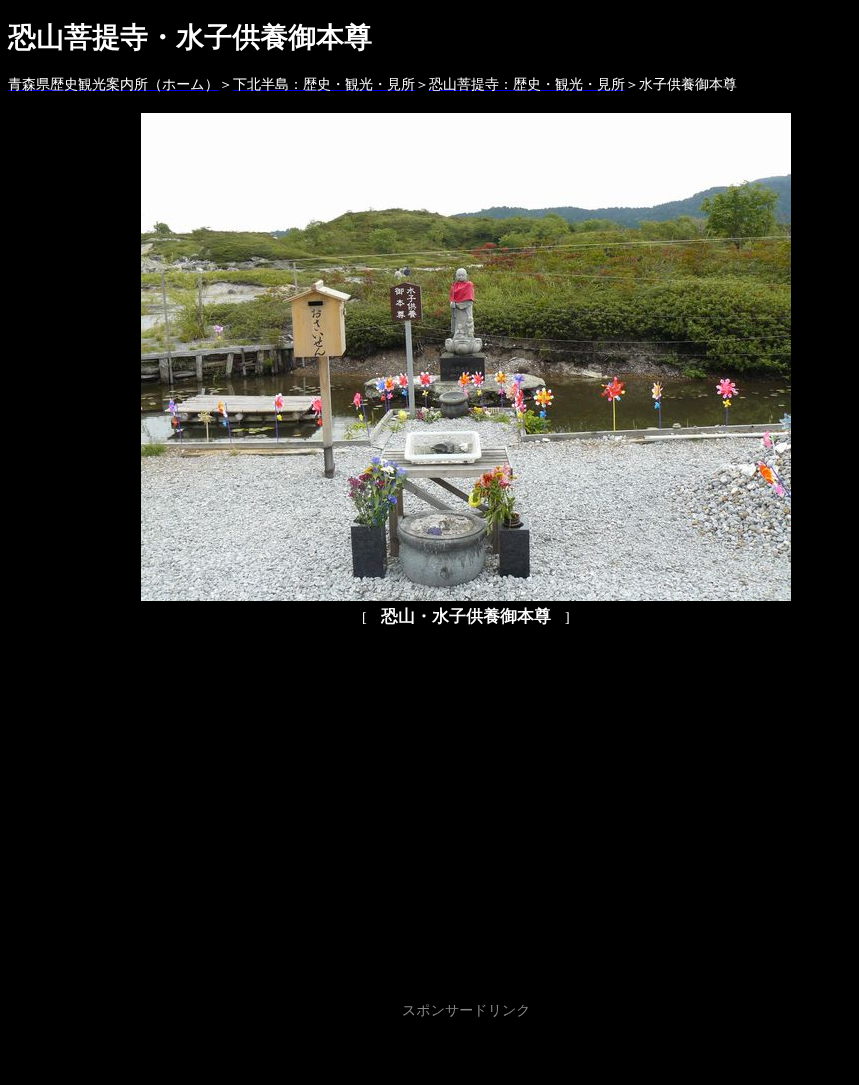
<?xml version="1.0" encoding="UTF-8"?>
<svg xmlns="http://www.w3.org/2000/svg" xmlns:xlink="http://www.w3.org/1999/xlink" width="859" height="1085">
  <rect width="100%" height="100%" fill="#000000" />
  <rect x="8" y="90" width="211" height="1" fill="#0000ee" />
  <rect x="233" y="90" width="182" height="1" fill="#0000ee" />
  <rect x="429" y="90" width="196" height="1" fill="#0000ee" />
  <image x="141" y="113" width="650" height="488" xlink:href="image1.png" />
  <text x="8" y="47" style="font-family: WenQuanYi Zen Hei; font-size: 28px; font-weight: bold; fill: #ffffff">恐山菩提寺・水子供養御本尊</text>
  <text x="8" y="89" style="font-family: WenQuanYi Zen Hei; font-size: 14px; font-weight: 500; fill: #ffffff">青森県歴史観光案内所（ホーム）＞</text>
  <text x="233" y="89" style="font-family: WenQuanYi Zen Hei; font-size: 14px; font-weight: 500; fill: #ffffff">下北半島：歴史・観光・見所＞</text>
  <text x="429" y="89" style="font-family: WenQuanYi Zen Hei; font-size: 14px; font-weight: 500; fill: #ffffff">恐山菩提寺：歴史・観光・見所＞水子供養御本尊</text>
  <text x="362" y="622" style="font-family: Liberation Serif; font-size: 14px; fill: #ffffff">[</text>
  <text x="381" y="622" style="font-family: WenQuanYi Zen Hei; font-size: 17px; font-weight: bold; fill: #ffffff">恐山・水子供養御本尊</text>
  <text x="565" y="622" style="font-family: Liberation Serif; font-size: 14px; fill: #ffffff">]</text>
  <text x="402" y="1015" style="font-family: WenQuanYi Zen Hei; font-size: 14px; font-weight: 500; fill: #888888">スポンサードリンク</text>
</svg>
